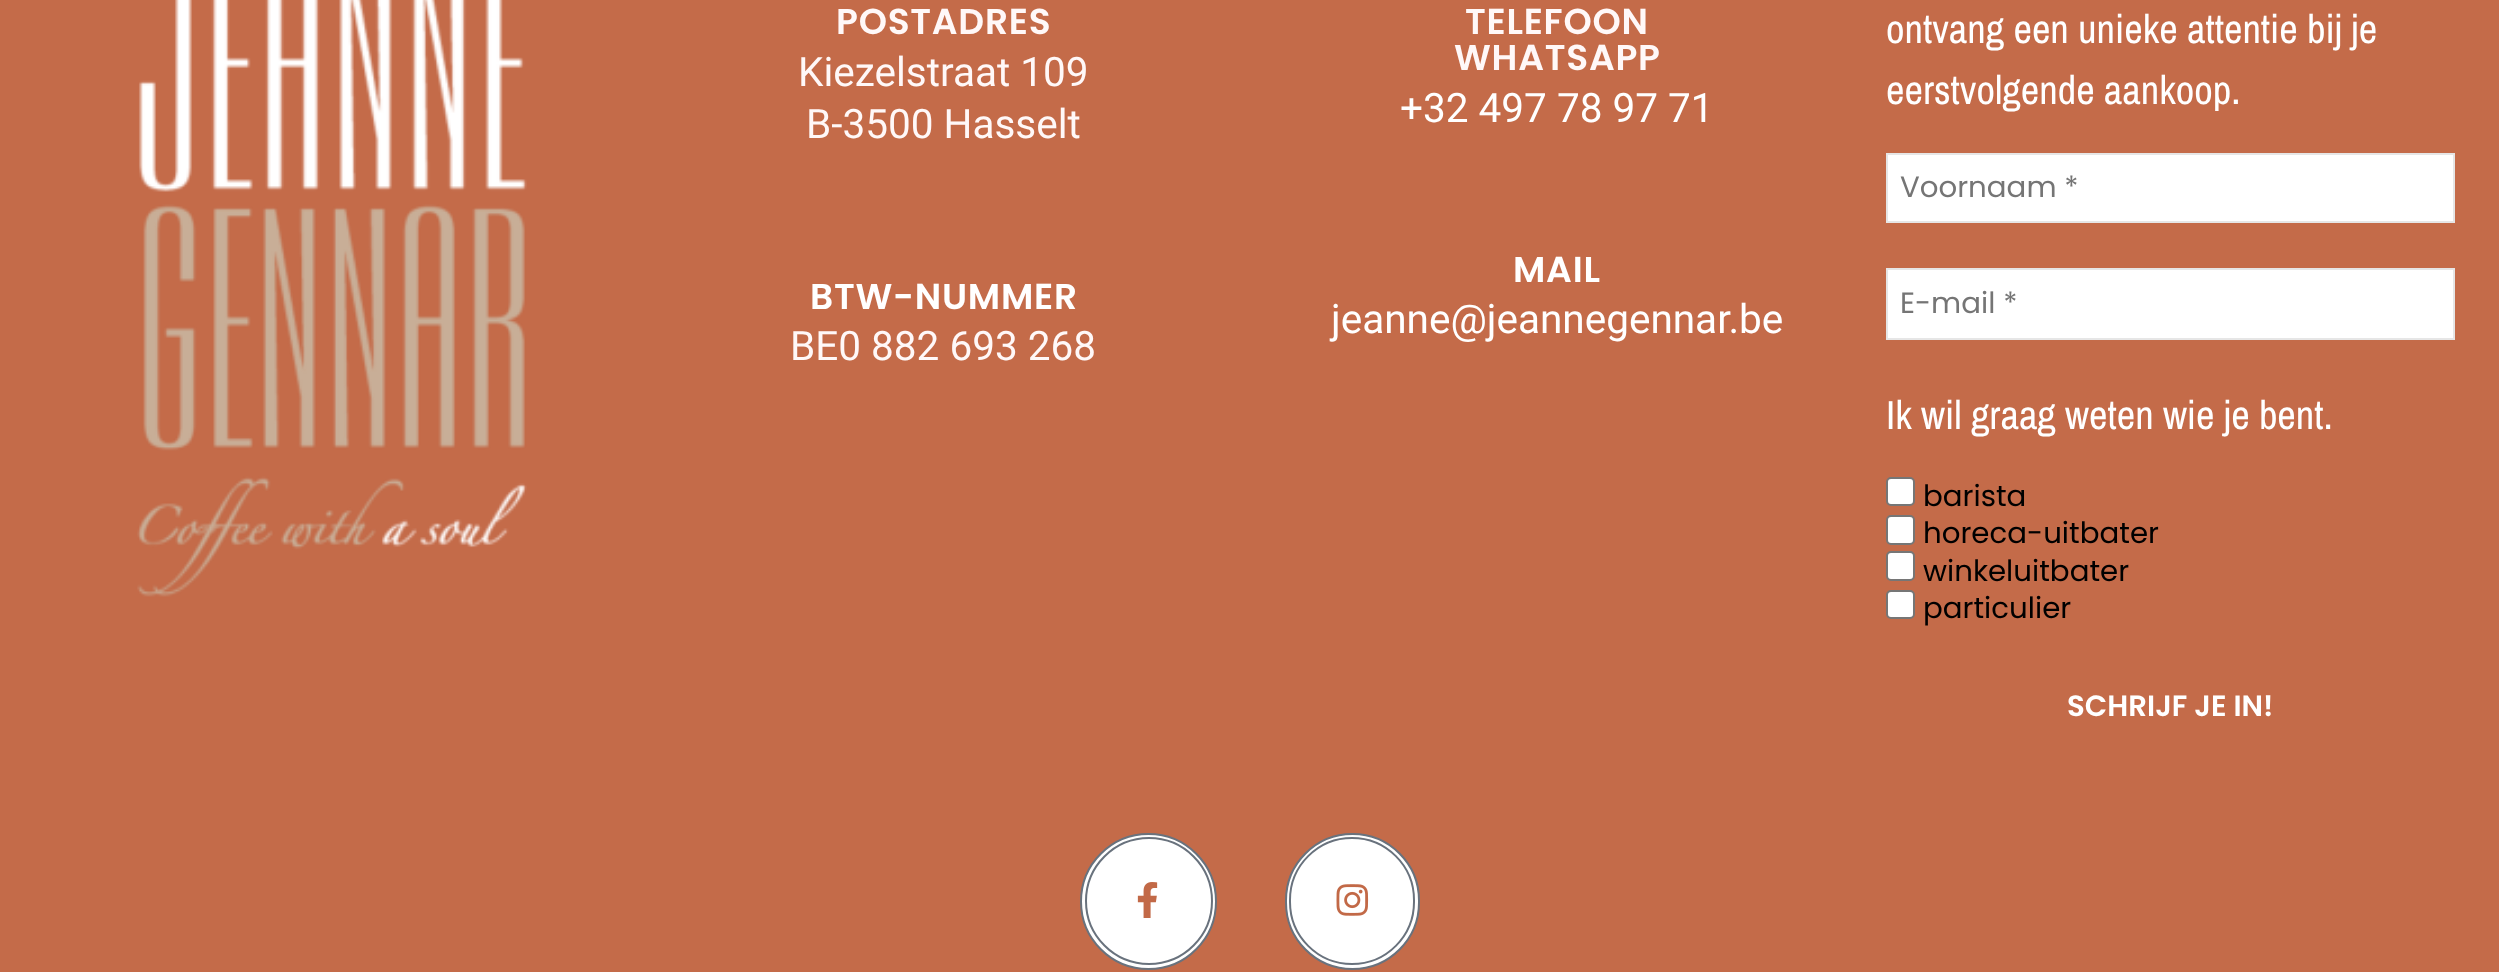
<?xml version="1.0" encoding="UTF-8"?>
<svg xmlns="http://www.w3.org/2000/svg" xmlns:xlink="http://www.w3.org/1999/xlink" width="2499" height="972">
  <rect width="100%" height="100%" fill="#c46b49" />
  <image x="137" y="0" width="390" height="597" xlink:href="image1.png" />
  <rect x="1887" y="154" width="567" height="68" fill="#ffffff" stroke="#e6e6e6" stroke-width="2" />
  <rect x="1887" y="269" width="567" height="70" fill="#ffffff" stroke="#e6e6e6" stroke-width="2" />
  <rect x="1887" y="478" width="27" height="27" rx="4" fill="#ffffff" stroke="#767676" stroke-width="2" />
  <rect x="1887" y="516" width="27" height="28" rx="4" fill="#ffffff" stroke="#767676" stroke-width="2" />
  <rect x="1887" y="552" width="27" height="28" rx="4" fill="#ffffff" stroke="#767676" stroke-width="2" />
  <rect x="1887" y="591" width="27" height="27" rx="4" fill="#ffffff" stroke="#767676" stroke-width="2" />
  <circle cx="1148.5" cy="901.5" r="67.5" fill="#ffffff" stroke="#69727d" stroke-width="2" />
  <circle cx="1149" cy="901" r="63" fill="none" stroke="#69727d" stroke-width="2" />
  <image x="1137" y="882" width="21" height="36" xlink:href="image2.png" />
  <rect x="1286" y="834" width="133" height="135" rx="66.5" fill="#ffffff" stroke="#69727d" stroke-width="2" />
  <rect x="1290" y="838" width="124" height="126" rx="62" fill="none" stroke="#69727d" stroke-width="2" />
  <image x="1336" y="884" width="33" height="32" xlink:href="image3.png" />
  <text x="836" y="34" style="font-family: Poppins; font-size: 36px; font-weight: 600; letter-spacing: 0.75px; fill: #fff8f8">POSTADRES</text>
  <text x="798" y="86" style="font-family: Roboto; font-size: 40.5px; fill: #fff8f8">Kiezelstraat 109</text>
  <text x="806" y="138" style="font-family: Roboto; font-size: 40.5px; fill: #fff8f8">B-3500 Hasselt</text>
  <text x="810" y="309" style="font-family: Poppins; font-size: 36px; font-weight: 600; letter-spacing: 0.75px; fill: #ffffff">BTW-NUMMER</text>
  <text x="790" y="360" style="font-family: Roboto; font-size: 40.5px; fill: #fff8f8">BE0 882 693 268</text>
  <text x="1465" y="34" style="font-family: Poppins; font-size: 36px; font-weight: 600; letter-spacing: 0.75px; fill: #fff8f8">TELEFOON</text>
  <text x="1454" y="70" style="font-family: Poppins; font-size: 36px; font-weight: 600; letter-spacing: 0.75px; fill: #fff8f8">WHATSAPP</text>
  <text x="1400" y="122" style="font-family: Roboto; font-size: 40.5px; fill: #ffffff">+32 497 78 97 71</text>
  <text x="1513" y="282" style="font-family: Poppins; font-size: 36px; font-weight: 600; letter-spacing: 0.75px; fill: #ffffff">MAIL</text>
  <text x="1331" y="333" style="font-family: Roboto; font-size: 40.5px; fill: #ffffff">jeanne@jeannegennar.be</text>
  <text x="1886" y="43" style="font-family: Archivo Narrow; font-size: 40.5px; fill: #ffffff">ontvang een unieke attentie bij je</text>
  <text x="1886" y="104" style="font-family: Archivo Narrow; font-size: 40.5px; fill: #ffffff">eerstvolgende aankoop.</text>
  <text x="1900" y="197" style="font-family: Poppins; font-size: 29.25px; fill: #757575">Voornaam *</text>
  <text x="1900" y="313" style="font-family: Poppins; font-size: 29.25px; fill: #757575">E-mail *</text>
  <text x="1886" y="429" style="font-family: Archivo Narrow; font-size: 40.5px; fill: #ffffff">Ik wil graag weten wie je bent.</text>
  <text x="1923" y="506" style="font-family: Poppins; font-size: 29.25px; fill: #000000">barista</text>
  <text x="1923" y="543" style="font-family: Poppins; font-size: 29.25px; fill: #000000">horeca-uitbater</text>
  <text x="1923" y="581" style="font-family: Poppins; font-size: 29.25px; fill: #000000">winkeluitbater</text>
  <text x="1923" y="618" style="font-family: Poppins; font-size: 29.25px; fill: #000000">particulier</text>
  <text x="2067" y="716" style="font-family: Poppins; font-size: 29.25px; font-weight: 600; fill: #ffffff">SCHRIJF JE IN!</text>
</svg>
